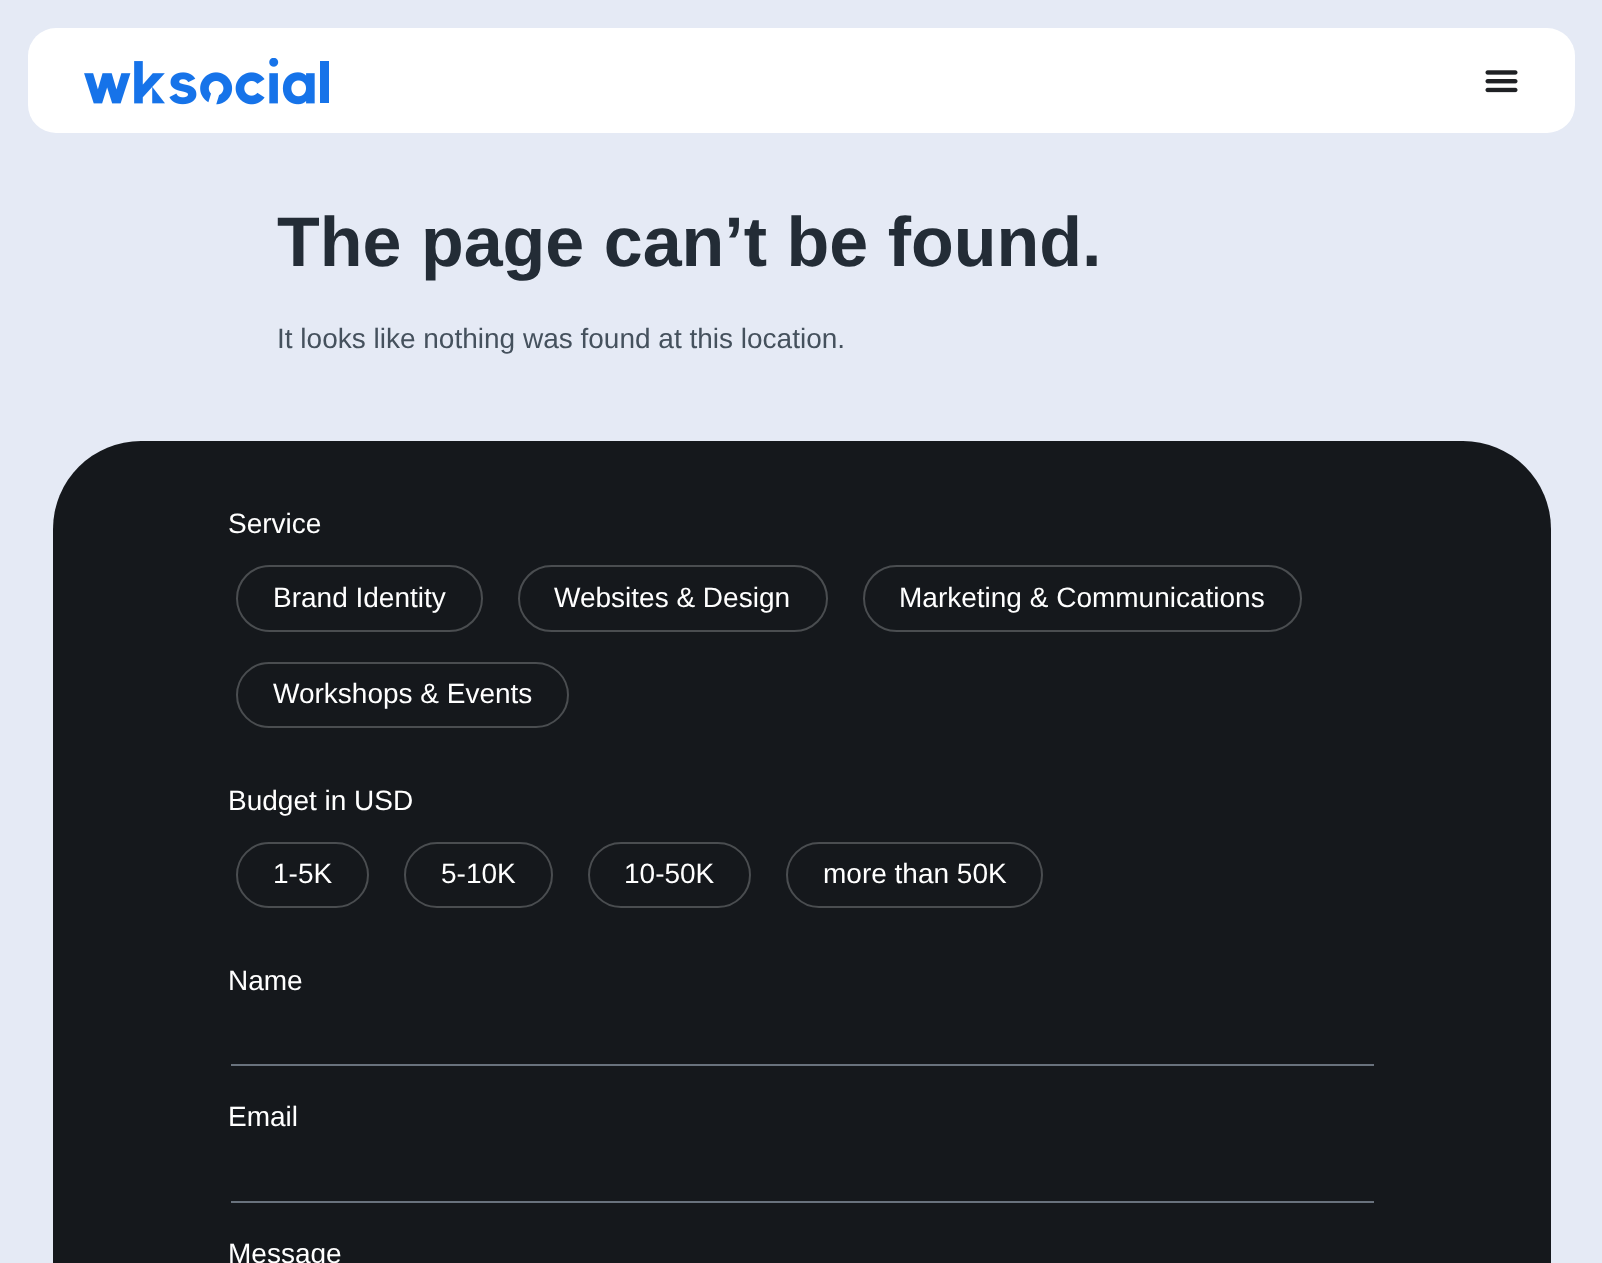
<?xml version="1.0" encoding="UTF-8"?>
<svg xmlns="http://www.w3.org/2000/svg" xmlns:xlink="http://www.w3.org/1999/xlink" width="1602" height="1263">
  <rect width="100%" height="100%" fill="#e5eaf5" />
  <rect x="28" y="28" width="1547" height="105" rx="28" fill="#ffffff" />
  <image x="84" y="58" width="245" height="47" xlink:href="image1.png" />
  <image x="1485" y="70" width="33" height="23" xlink:href="image2.png" />
  <rect x="53" y="441" width="1498" height="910" rx="88" fill="#15181c" />
  <rect x="237" y="566" width="245" height="65" rx="32.5" fill="none" stroke="#4a4d50" stroke-width="2" />
  <rect x="519" y="566" width="308" height="65" rx="32.5" fill="none" stroke="#4a4d50" stroke-width="2" />
  <rect x="864" y="566" width="437" height="65" rx="32.5" fill="none" stroke="#4a4d50" stroke-width="2" />
  <rect x="237" y="663" width="331" height="64" rx="32" fill="none" stroke="#4a4d50" stroke-width="2" />
  <rect x="237" y="843" width="131" height="64" rx="32" fill="none" stroke="#4a4d50" stroke-width="2" />
  <rect x="405" y="843" width="147" height="64" rx="32" fill="none" stroke="#4a4d50" stroke-width="2" />
  <rect x="589" y="843" width="161" height="64" rx="32" fill="none" stroke="#4a4d50" stroke-width="2" />
  <rect x="787" y="843" width="255" height="64" rx="32" fill="none" stroke="#4a4d50" stroke-width="2" />
  <rect x="231" y="1064" width="1143" height="2" fill="#69727d" />
  <rect x="231" y="1201" width="1143" height="2" fill="#69727d" />
  <text x="277" y="266" style="font-family: Liberation Sans; font-size: 70px; font-weight: bold; fill: #232c36">The page can’t be found.</text>
  <text x="277" y="348" style="font-family: Liberation Sans; font-size: 28px; fill: #45515d">It looks like nothing was found at this location.</text>
  <text x="228" y="533" style="font-family: Liberation Sans; font-size: 28px; fill: #ffffff">Service</text>
  <text x="273" y="607" style="font-family: Liberation Sans; font-size: 28px; fill: #ffffff">Brand Identity</text>
  <text x="554" y="607" style="font-family: Liberation Sans; font-size: 28px; fill: #ffffff">Websites &amp; Design</text>
  <text x="899" y="607" style="font-family: Liberation Sans; font-size: 28px; fill: #ffffff">Marketing &amp; Communications</text>
  <text x="273" y="703" style="font-family: Liberation Sans; font-size: 28px; fill: #ffffff">Workshops &amp; Events</text>
  <text x="228" y="810" style="font-family: Liberation Sans; font-size: 28px; fill: #ffffff">Budget in USD</text>
  <text x="273" y="883" style="font-family: Liberation Sans; font-size: 28px; fill: #ffffff">1-5K</text>
  <text x="441" y="883" style="font-family: Liberation Sans; font-size: 28px; fill: #ffffff">5-10K</text>
  <text x="624" y="883" style="font-family: Liberation Sans; font-size: 28px; fill: #ffffff">10-50K</text>
  <text x="823" y="883" style="font-family: Liberation Sans; font-size: 28px; fill: #ffffff">more than 50K</text>
  <text x="228" y="990" style="font-family: Liberation Sans; font-size: 28px; fill: #ffffff">Name</text>
  <text x="228" y="1126" style="font-family: Liberation Sans; font-size: 28px; fill: #ffffff">Email</text>
  <text x="228" y="1263" style="font-family: Liberation Sans; font-size: 28px; fill: #ffffff">Message</text>
</svg>
